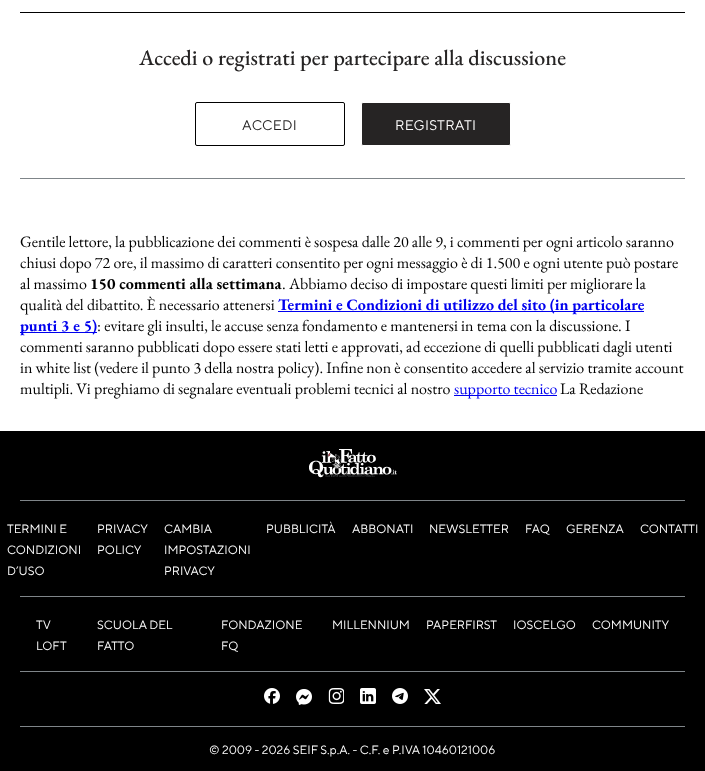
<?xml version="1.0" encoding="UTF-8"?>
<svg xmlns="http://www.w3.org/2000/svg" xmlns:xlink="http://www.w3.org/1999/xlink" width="705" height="771">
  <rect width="100%" height="100%" fill="#ffffff" />
  <rect x="20" y="12" width="665" height="1" fill="#000000" />
  <rect x="20" y="178" width="665" height="1" fill="#7f8589" />
  <rect x="195.5" y="102.5" width="149" height="43" rx="1.5" fill="none" stroke="#000000" />
  <rect x="361.5" y="102.5" width="149" height="43" rx="1.5" fill="#262424" stroke="#ffffff" />
  <rect x="278" y="311" width="366" height="1" fill="#0000ee" />
  <rect x="20" y="332" width="77" height="1" fill="#0000ee" />
  <rect x="454" y="395" width="103" height="1" fill="#0000ee" />
  <rect y="431" width="705" height="340" fill="#000000" />
  <rect x="20" y="500" width="665" height="1" fill="#7f8589" />
  <image x="309" y="449" width="88" height="29" xlink:href="image1.png" />
  <rect x="20" y="596" width="665" height="1" fill="#7f8589" />
  <rect x="20" y="671" width="665" height="1" fill="#7f8589" />
  <rect x="20" y="726" width="665" height="1" fill="#7f8589" />
  <image x="264" y="688" width="16" height="16" xlink:href="image2.png" />
  <image x="296" y="689" width="16" height="16" xlink:href="image3.png" />
  <image x="328" y="688" width="16" height="16" xlink:href="image4.png" />
  <image x="360" y="688" width="16" height="16" xlink:href="image5.png" />
  <image x="392" y="688" width="16" height="16" xlink:href="image6.png" />
  <image x="424" y="689" width="17" height="15" xlink:href="image7.png" />
  <text x="139" y="65" style="font-family: EB Garamond; font-size: 22px; font-weight: 500; fill: #262424">Accedi o registrati per partecipare alla discussione</text>
  <text x="242" y="130" style="font-family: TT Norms; font-size: 14px; letter-spacing: 0.25px; fill: #262424">ACCEDI</text>
  <text x="395" y="130" style="font-family: TT Norms; font-size: 14px; letter-spacing: 0.25px; fill: #ffffff">REGISTRATI</text>
  <text x="20" y="247" style="font-family: EB Garamond; font-size: 16px; fill: #000000">Gentile lettore, la pubblicazione dei commenti è sospesa dalle 20 alle 9, i commenti per ogni articolo saranno</text>
  <text x="20" y="268" style="font-family: EB Garamond; font-size: 16px; fill: #000000">chiusi dopo 72 ore, il massimo di caratteri consentito per ogni messaggio è di 1.500 e ogni utente può postare</text>
  <text x="20" y="289" style="font-family: EB Garamond; font-size: 16px; fill: #000000">al massimo</text>
  <text x="90" y="289" style="font-family: EB Garamond; font-size: 16px; font-weight: bold; fill: #000000">150 commenti alla settimana</text>
  <text x="282" y="289" style="font-family: EB Garamond; font-size: 16px; fill: #000000">. Abbiamo deciso di impostare questi limiti per migliorare la</text>
  <text x="20" y="310" style="font-family: EB Garamond; font-size: 16px; fill: #000000">qualità del dibattito. È necessario attenersi</text>
  <text x="278" y="310" style="font-family: EB Garamond; font-size: 16px; font-weight: bold; fill: #0000ee">Termini e Condizioni di utilizzo del sito (in particolare</text>
  <text x="20" y="331" style="font-family: EB Garamond; font-size: 16px; font-weight: bold; fill: #0000ee">punti 3 e 5)</text>
  <text x="97" y="331" style="font-family: EB Garamond; font-size: 16px; fill: #000000">: evitare gli insulti, le accuse senza fondamento e mantenersi in tema con la discussione. I</text>
  <text x="20" y="352" style="font-family: EB Garamond; font-size: 16px; fill: #000000">commenti saranno pubblicati dopo essere stati letti e approvati, ad eccezione di quelli pubblicati dagli utenti</text>
  <text x="20" y="373" style="font-family: EB Garamond; font-size: 16px; fill: #000000">in white list (vedere il punto 3 della nostra policy). Infine non è consentito accedere al servizio tramite account</text>
  <text x="20" y="394" style="font-family: EB Garamond; font-size: 16px; fill: #000000">multipli. Vi preghiamo di segnalare eventuali problemi tecnici al nostro</text>
  <text x="454" y="394" style="font-family: EB Garamond; font-size: 16px; fill: #0000ee">supporto tecnico</text>
  <text x="560" y="394" style="font-family: EB Garamond; font-size: 16px; fill: #000000">La Redazione</text>
  <text x="7" y="533" style="font-family: TT Norms; font-size: 12px; fill: #ffffff">TERMINI E</text>
  <text x="7" y="554" style="font-family: TT Norms; font-size: 12px; fill: #ffffff">CONDIZIONI</text>
  <text x="7" y="575" style="font-family: TT Norms; font-size: 12px; fill: #ffffff">D’USO</text>
  <text x="97" y="533" style="font-family: TT Norms; font-size: 12px; fill: #ffffff">PRIVACY</text>
  <text x="97" y="554" style="font-family: TT Norms; font-size: 12px; fill: #ffffff">POLICY</text>
  <text x="164" y="533" style="font-family: TT Norms; font-size: 12px; fill: #ffffff">CAMBIA</text>
  <text x="164" y="554" style="font-family: TT Norms; font-size: 12px; fill: #ffffff">IMPOSTAZIONI</text>
  <text x="164" y="575" style="font-family: TT Norms; font-size: 12px; fill: #ffffff">PRIVACY</text>
  <text x="266" y="533" style="font-family: TT Norms; font-size: 12px; fill: #ffffff">PUBBLICITÀ</text>
  <text x="352" y="533" style="font-family: TT Norms; font-size: 12px; fill: #ffffff">ABBONATI</text>
  <text x="429" y="533" style="font-family: TT Norms; font-size: 12px; fill: #ffffff">NEWSLETTER</text>
  <text x="525" y="533" style="font-family: TT Norms; font-size: 12px; fill: #ffffff">FAQ</text>
  <text x="566" y="533" style="font-family: TT Norms; font-size: 12px; fill: #ffffff">GERENZA</text>
  <text x="640" y="533" style="font-family: TT Norms; font-size: 12px; fill: #ffffff">CONTATTI</text>
  <text x="36" y="629" style="font-family: TT Norms; font-size: 12px; fill: #ffffff">TV</text>
  <text x="36" y="650" style="font-family: TT Norms; font-size: 12px; fill: #ffffff">LOFT</text>
  <text x="97" y="629" style="font-family: TT Norms; font-size: 12px; fill: #ffffff">SCUOLA DEL</text>
  <text x="97" y="650" style="font-family: TT Norms; font-size: 12px; fill: #ffffff">FATTO</text>
  <text x="221" y="629" style="font-family: TT Norms; font-size: 12px; fill: #ffffff">FONDAZIONE</text>
  <text x="221" y="650" style="font-family: TT Norms; font-size: 12px; fill: #ffffff">FQ</text>
  <text x="332" y="629" style="font-family: TT Norms; font-size: 12px; fill: #ffffff">MILLENNIUM</text>
  <text x="426" y="629" style="font-family: TT Norms; font-size: 12px; fill: #ffffff">PAPERFIRST</text>
  <text x="513" y="629" style="font-family: TT Norms; font-size: 12px; fill: #ffffff">IOSCELGO</text>
  <text x="592" y="629" style="font-family: TT Norms; font-size: 12px; fill: #ffffff">COMMUNITY</text>
  <text x="209" y="754" style="font-family: TT Norms; font-size: 12px; fill: #ffffff">© 2009 - 2026 SEIF S.p.A. - C.F. e P.IVA 10460121006</text>
</svg>
